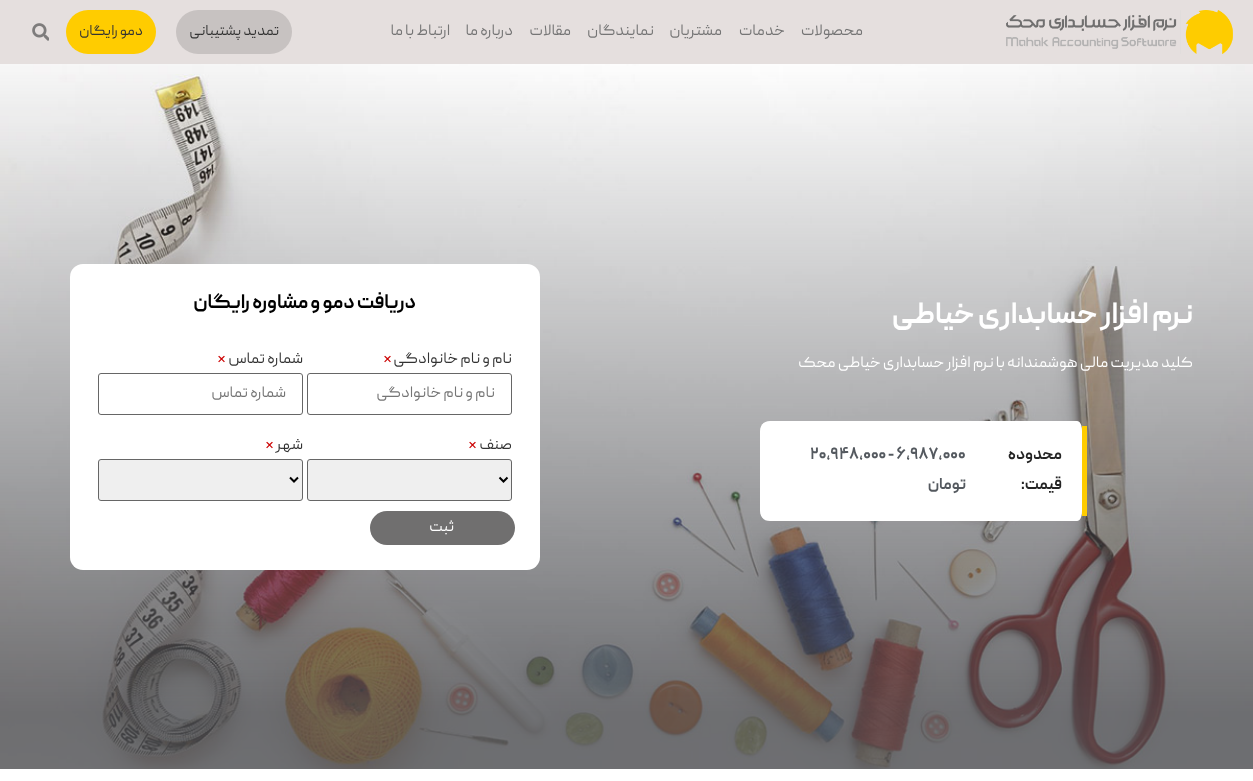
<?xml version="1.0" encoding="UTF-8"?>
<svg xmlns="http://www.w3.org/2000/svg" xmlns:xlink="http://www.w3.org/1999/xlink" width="1253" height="781">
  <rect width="100%" height="100%" fill="#ffffff" />
  <rect width="1253" height="64" fill="#e5dfde" />
  <image x="1006" y="10" width="227" height="44" xlink:href="image1.png" />
  <rect x="176" y="10" width="116" height="44" rx="22" fill="#c7c2c1" />
  <rect x="66" y="10" width="90" height="44" rx="22" fill="#ffcc00" />
  <image x="32" y="23" width="17" height="18" xlink:href="image2.png" />
  <image x="0" y="64" width="1253" height="705" xlink:href="image3.png" />
  <path d="M 770 421 h 307 c 3 0 5 4 5 10 v 80 c 0 6 -2 10 -5 10 h -307 c -6 0 -10 -4 -10 -10 v -80 c 0 -6 4 -10 10 -10 z" fill="#ffffff" />
  <rect x="1082" y="426" width="5" height="90" fill="#ffcc00" />
  <rect x="70" y="264" width="470" height="306" rx="13" fill="#ffffff" />
  <rect x="307.5" y="373.5" width="204" height="41" rx="2.5" fill="none" stroke="#666666" />
  <rect x="98.5" y="373.5" width="204" height="41" rx="2.5" fill="none" stroke="#666666" />
  <rect x="307.5" y="459.5" width="204" height="41" rx="2.5" fill="#efefef" stroke="#666666" />
  <path d="M 499.5 477.5 l 4 4 l 4 -4" fill="none" stroke="#000000" stroke-width="2" />
  <rect x="98.5" y="459.5" width="204" height="41" rx="2.5" fill="#efefef" stroke="#666666" />
  <path d="M 290 477.5 l 4 4 l 4 -4" fill="none" stroke="#000000" stroke-width="2" />
  <rect x="370" y="511" width="145" height="34" rx="17" fill="#706f6f" />
  <text x="863" y="35" style="font-family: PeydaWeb; font-size: 16px; direction: rtl; fill: #757575">محصولات</text>
  <text x="785" y="35" style="font-family: PeydaWeb; font-size: 16px; direction: rtl; fill: #757575">خدمات</text>
  <text x="722" y="35" style="font-family: PeydaWeb; font-size: 16px; direction: rtl; fill: #757575">مشتریان</text>
  <text x="654" y="35" style="font-family: PeydaWeb; font-size: 16px; direction: rtl; fill: #757575">نمایندگان</text>
  <text x="571" y="35" style="font-family: PeydaWeb; font-size: 16px; direction: rtl; fill: #757575">مقالات</text>
  <text x="513" y="35" style="font-family: PeydaWeb; font-size: 16px; direction: rtl; fill: #757575">درباره ما</text>
  <text x="450" y="35" style="font-family: PeydaWeb; font-size: 16px; direction: rtl; fill: #757575">ارتباط با ما</text>
  <text x="279" y="35" style="font-family: PeydaWeb; font-size: 15px; direction: rtl; fill: #333333">تمدید پشتیبانی</text>
  <text x="143" y="35" style="font-family: PeydaWeb; font-size: 15px; direction: rtl; fill: #333333">دمو رایگان</text>
  <text x="1193" y="323" style="font-family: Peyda; font-size: 30px; font-weight: bold; direction: rtl; fill: #ffffff">نرم افزار حسابداری خیاطی</text>
  <text x="1193" y="367" style="font-family: PeydaWeb; font-size: 16px; direction: rtl; fill: #ffffff">کلید مدیریت مالی هوشمندانه با نرم افزار حسابداری خیاطی محک</text>
  <text x="1062" y="459" style="font-family: Peyda; font-size: 16px; font-weight: bold; direction: rtl; fill: #242424">محدوده</text>
  <text x="1062" y="489" style="font-family: Peyda; font-size: 16px; font-weight: bold; direction: rtl; fill: #242424">قیمت:</text>
  <text x="810" y="459" style="font-family: Peyda; font-size: 16px; font-weight: bold; fill: #54595f">20,948,000 - 6,987,000</text>
  <text x="966" y="489" style="font-family: Peyda; font-size: 16px; font-weight: bold; direction: rtl; fill: #54595f">تومان</text>
  <text x="416" y="308" style="font-family: Peyda; font-size: 20px; font-weight: bold; direction: rtl; fill: #000000">دریافت دمو و مشاوره رایگان</text>
  <text x="512" y="363" style="font-family: PeydaWeb; font-size: 16px; direction: rtl; fill: #333333">نام و نام خانوادگی</text>
  <text x="383" y="363" style="font-family: PeydaWeb; font-size: 16px; fill: #cc0000">*</text>
  <text x="495" y="397" style="font-family: PeydaWeb; font-size: 16px; direction: rtl; fill: #757575">نام و نام خانوادگی</text>
  <text x="303" y="363" style="font-family: PeydaWeb; font-size: 16px; direction: rtl; fill: #333333">شماره تماس</text>
  <text x="217" y="363" style="font-family: PeydaWeb; font-size: 16px; fill: #cc0000">*</text>
  <text x="286" y="397" style="font-family: PeydaWeb; font-size: 16px; direction: rtl; fill: #757575">شماره تماس</text>
  <text x="512" y="449" style="font-family: PeydaWeb; font-size: 16px; direction: rtl; fill: #333333">صنف</text>
  <text x="468" y="449" style="font-family: PeydaWeb; font-size: 16px; fill: #cc0000">*</text>
  <text x="303" y="449" style="font-family: PeydaWeb; font-size: 16px; direction: rtl; fill: #333333">شهر</text>
  <text x="265" y="449" style="font-family: PeydaWeb; font-size: 16px; fill: #cc0000">*</text>
  <text x="454" y="531" style="font-family: PeydaWeb; font-size: 16px; direction: rtl; fill: #ffffff">ثبت</text>
</svg>
